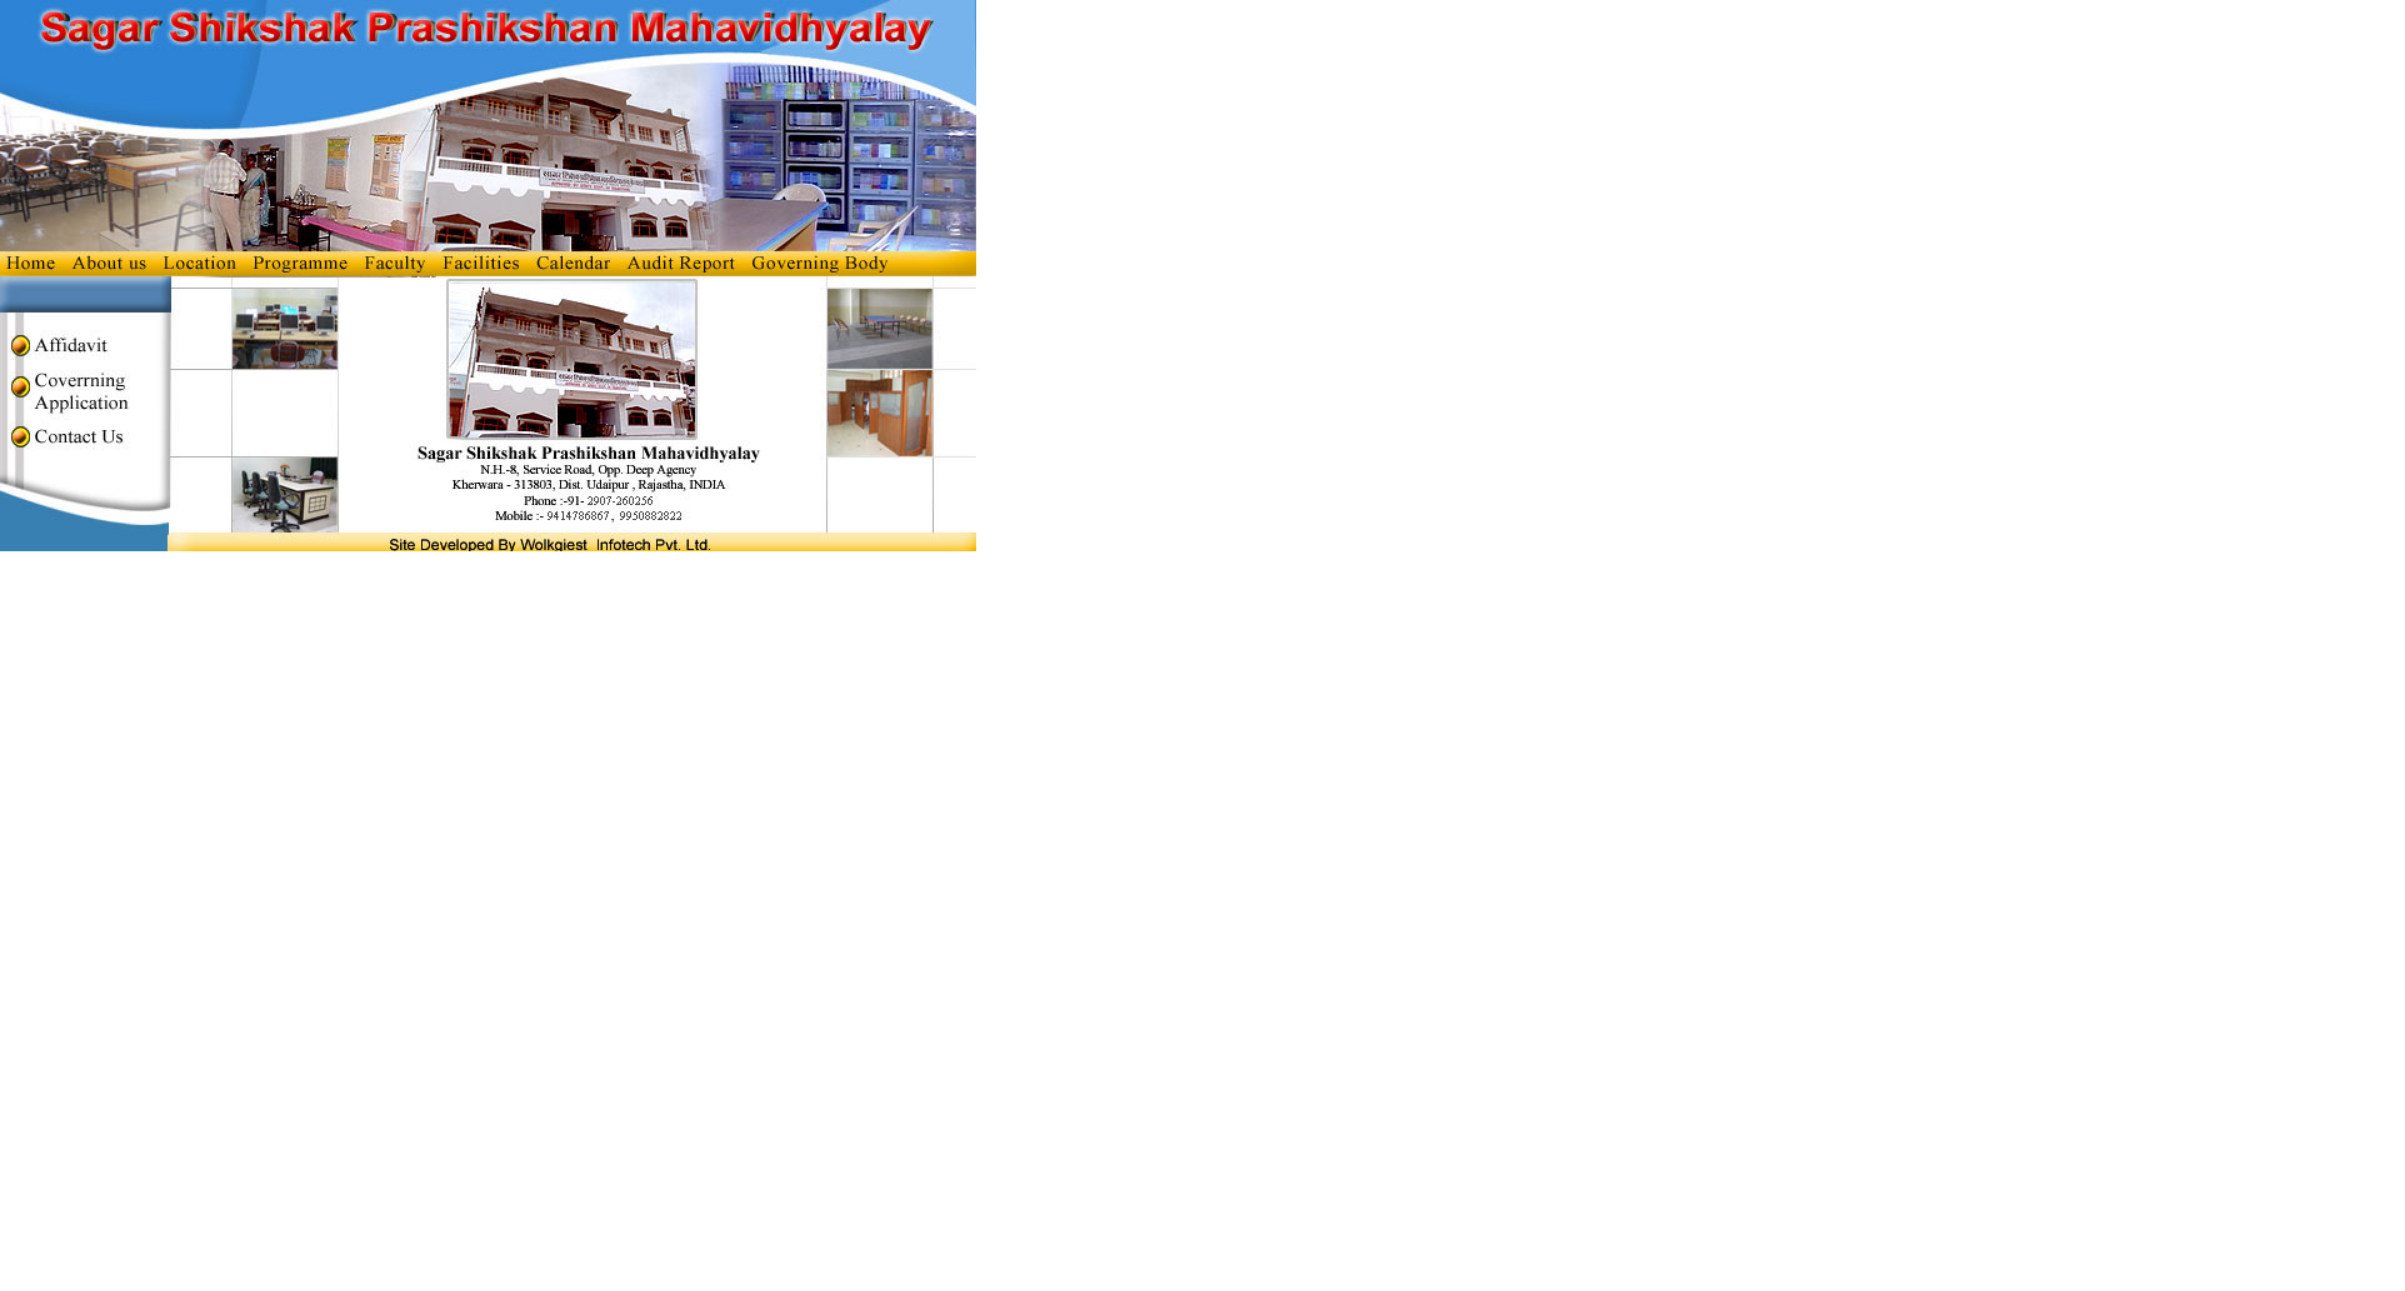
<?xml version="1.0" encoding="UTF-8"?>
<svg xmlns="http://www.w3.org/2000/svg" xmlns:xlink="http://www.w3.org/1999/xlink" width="2405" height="1291">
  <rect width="100%" height="100%" fill="#ffffff" />
  <image x="0" y="0" width="977" height="552" xlink:href="image1.png" />
</svg>
